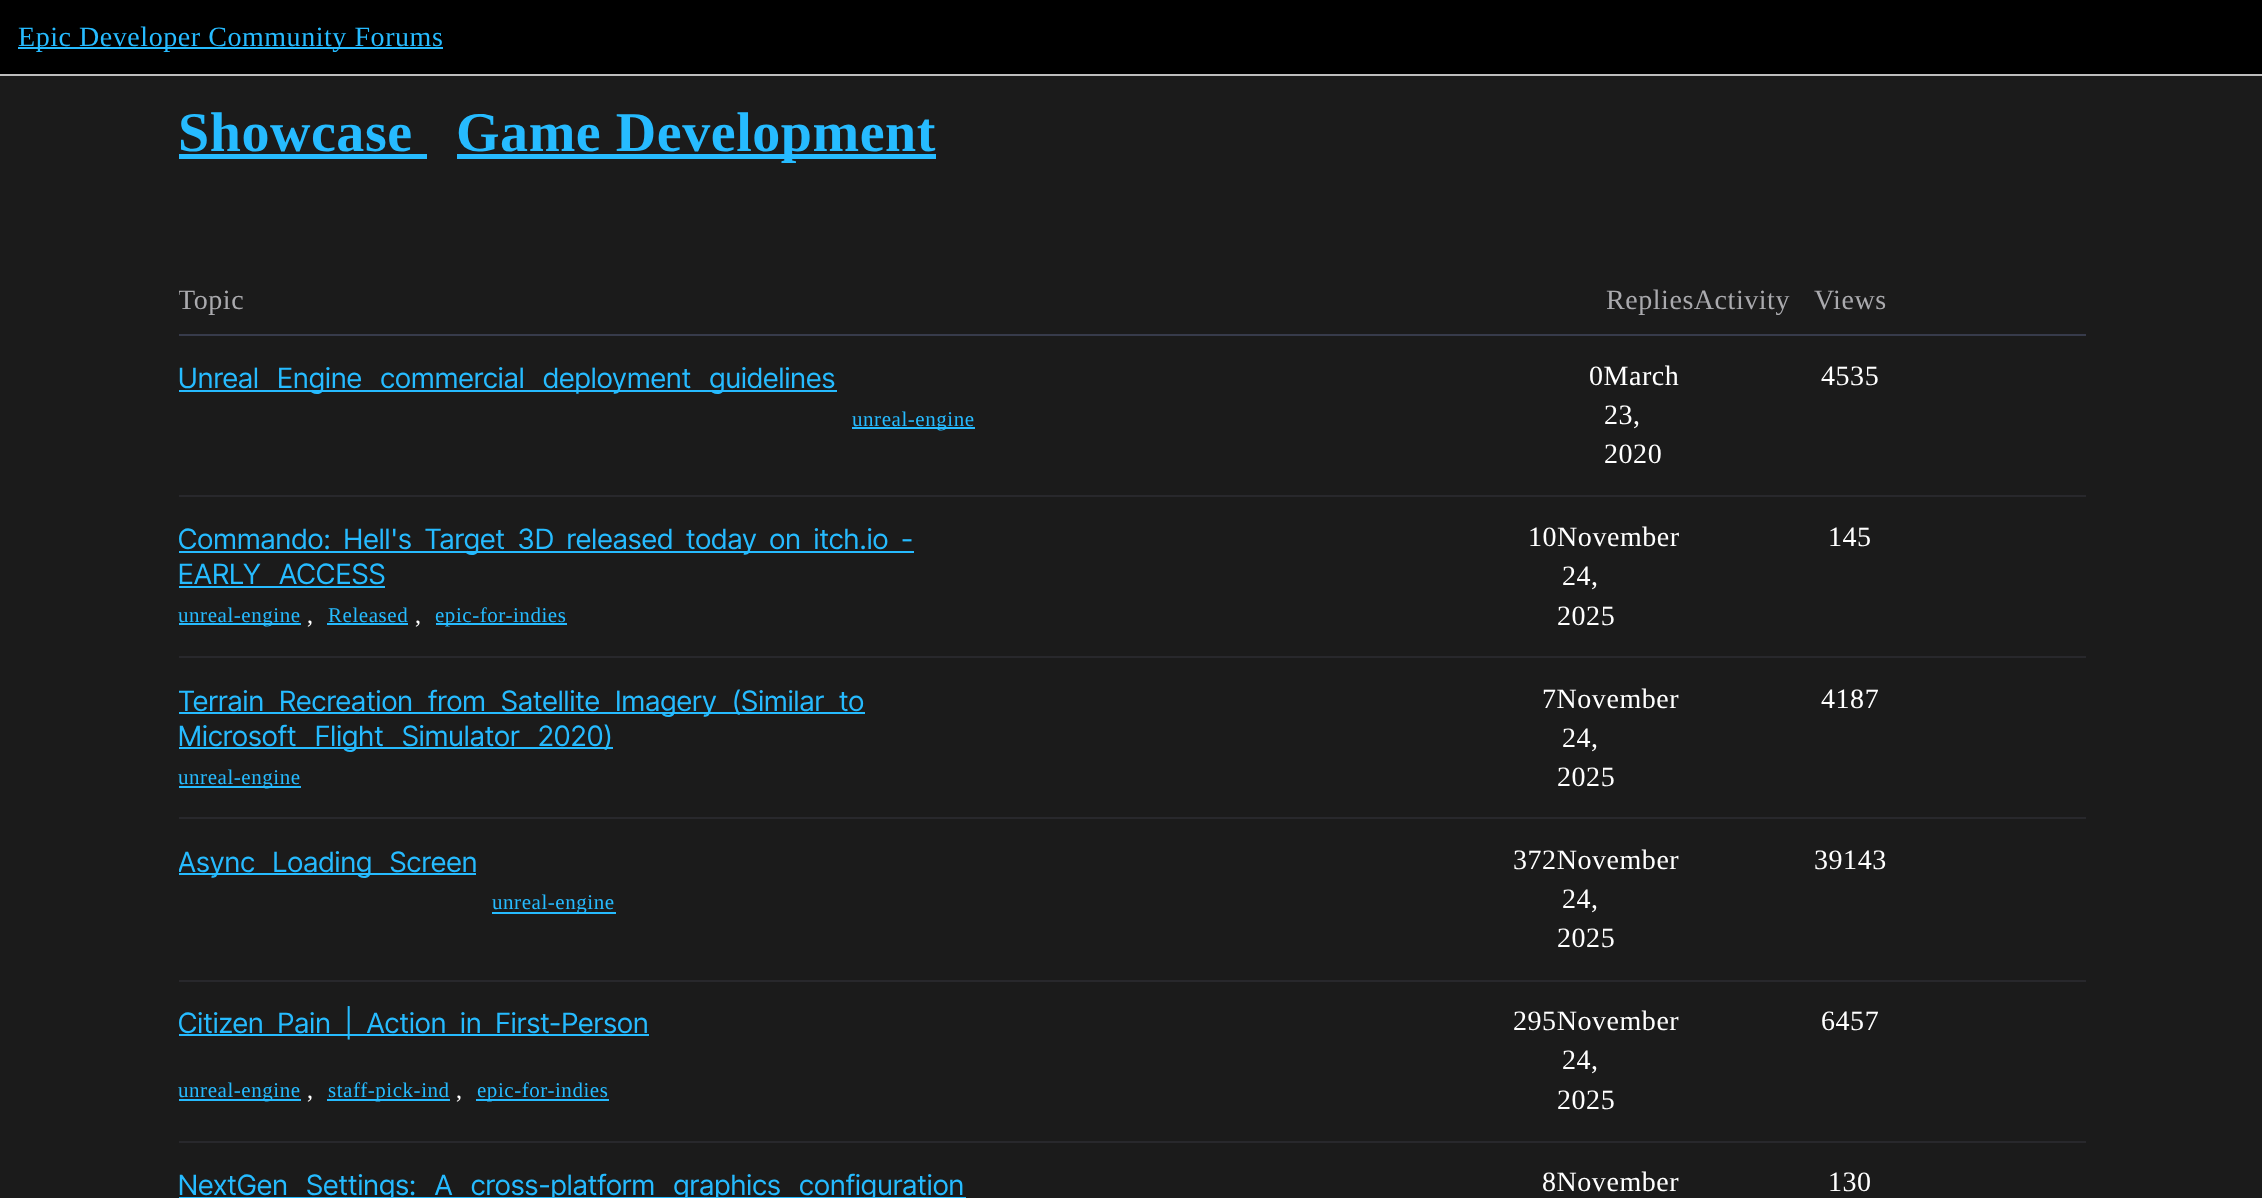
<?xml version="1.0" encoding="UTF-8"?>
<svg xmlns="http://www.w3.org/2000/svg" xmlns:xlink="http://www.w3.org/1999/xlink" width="2262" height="1198">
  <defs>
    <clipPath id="clip1"><rect x="179" y="282" width="1907" height="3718" /></clipPath>
  </defs>
  <rect width="100%" height="100%" fill="#1b1b1b" />
  <rect width="2262" height="74" fill="#000000" />
  <rect y="74" width="2262" height="2" fill="#bdbdbd" />
  <rect x="18" y="47" width="425" height="2" fill="#26bbff" />
  <rect x="179" y="154" width="248" height="5" fill="#26bbff" />
  <rect x="457" y="154" width="479" height="5" fill="#26bbff" />
  <rect x="179" y="334" width="1907" height="2" fill="#373b4b" />
  <rect x="179" y="495" width="1907" height="2" fill="#28282c" />
  <rect x="179" y="390" width="658" height="2" fill="#26bbff" />
  <rect x="852" y="427" width="123" height="2" fill="#26bbff" />
  <rect x="179" y="656" width="1907" height="2" fill="#28282c" />
  <rect x="179" y="551" width="735" height="2" fill="#26bbff" />
  <rect x="179" y="586" width="206" height="2" fill="#26bbff" />
  <rect x="179" y="623" width="122" height="2" fill="#26bbff" />
  <rect x="327" y="623" width="81" height="2" fill="#26bbff" />
  <rect x="436" y="623" width="131" height="2" fill="#26bbff" />
  <rect x="179" y="817" width="1907" height="2" fill="#28282c" />
  <rect x="179" y="712" width="686" height="2" fill="#26bbff" />
  <rect x="179" y="747" width="434" height="2" fill="#26bbff" />
  <rect x="179" y="786" width="122" height="2" fill="#26bbff" />
  <rect x="179" y="980" width="1907" height="2" fill="#28282c" />
  <rect x="179" y="873" width="297" height="2" fill="#26bbff" />
  <rect x="492" y="912" width="124" height="2" fill="#26bbff" />
  <rect x="179" y="1141" width="1907" height="2" fill="#28282c" />
  <rect x="179" y="1034" width="470" height="2" fill="#26bbff" />
  <rect x="179" y="1099" width="122" height="2" fill="#26bbff" />
  <rect x="327" y="1099" width="123" height="2" fill="#26bbff" />
  <rect x="476" y="1099" width="133" height="2" fill="#26bbff" />
  <rect x="179" y="1197" width="787" height="1" fill="#26bbff" />
  <text x="18" y="46" style="font-family: Liberation Serif; font-size: 28px; letter-spacing: 0.55px; fill: #26bbff">Epic Developer Community Forums</text>
  <text x="178" y="151" style="font-family: Liberation Serif; font-size: 56px; font-weight: bold; letter-spacing: 0.55px; fill: #26bbff">Showcase</text>
  <text x="456" y="151" style="font-family: Liberation Serif; font-size: 56px; font-weight: bold; letter-spacing: 0.55px; fill: #26bbff">Game Development</text>
  <g clip-path="url(#clip1)">
    <text x="178" y="309" style="font-family: Liberation Serif; font-size: 28px; letter-spacing: 0.55px; fill: #aaaaae">Topic</text>
  </g>
  <text x="1606" y="309" style="font-family: Liberation Serif; font-size: 28px; letter-spacing: 0.55px; fill: #aaaaae">RepliesActivity</text>
  <text x="1814" y="309" style="font-family: Liberation Serif; font-size: 28px; letter-spacing: 0.55px; fill: #aaaaae">Views</text>
  <text x="178" y="388" word-spacing="11" style="font-family: Inter Tight; font-size: 28px; letter-spacing: 0.55px; fill: #26bbff">Unreal Engine commercial deployment guidelines</text>
  <text x="852" y="426" style="font-family: Liberation Serif; font-size: 21px; letter-spacing: 0.55px; fill: #26bbff">unreal-engine</text>
  <text x="1589" y="385" style="font-family: Liberation Serif; font-size: 28px; letter-spacing: 0.55px; fill: #ffffff">0March</text>
  <text x="1821" y="385" style="font-family: Liberation Serif; font-size: 28px; letter-spacing: 0.55px; fill: #ffffff">4535</text>
  <text x="1604" y="424" style="font-family: Liberation Serif; font-size: 28px; letter-spacing: 0.55px; fill: #ffffff">23,</text>
  <text x="1604" y="463" style="font-family: Liberation Serif; font-size: 28px; letter-spacing: 0.55px; fill: #ffffff">2020</text>
  <g clip-path="url(#clip1)">
    <text x="178" y="549" word-spacing="5.5" style="font-family: Inter Tight; font-size: 28px; letter-spacing: 0.55px; fill: #26bbff">Commando: Hell's Target 3D released today on itch.io -</text>
  </g>
  <text x="178" y="584" word-spacing="11" style="font-family: Inter Tight; font-size: 28px; letter-spacing: 0.55px; fill: #26bbff">EARLY ACCESS</text>
  <text x="178" y="622" style="font-family: Liberation Serif; font-size: 21px; letter-spacing: 0.55px; fill: #26bbff">unreal-engine</text>
  <text x="307" y="623" style="font-family: Liberation Serif; font-size: 24px; letter-spacing: 0.55px; fill: #ffffff">,</text>
  <text x="328" y="622" style="font-family: Liberation Serif; font-size: 21px; letter-spacing: 0.55px; fill: #26bbff">Released</text>
  <text x="415" y="623" style="font-family: Liberation Serif; font-size: 24px; letter-spacing: 0.55px; fill: #ffffff">,</text>
  <text x="435" y="622" style="font-family: Liberation Serif; font-size: 21px; letter-spacing: 0.55px; fill: #26bbff">epic-for-indies</text>
  <text x="1528" y="546" style="font-family: Liberation Serif; font-size: 28px; letter-spacing: 0.55px; fill: #ffffff">10November</text>
  <text x="1828" y="546" style="font-family: Liberation Serif; font-size: 28px; letter-spacing: 0.55px; fill: #ffffff">145</text>
  <text x="1562" y="585" style="font-family: Liberation Serif; font-size: 28px; letter-spacing: 0.55px; fill: #ffffff">24,</text>
  <text x="1557" y="625" style="font-family: Liberation Serif; font-size: 28px; letter-spacing: 0.55px; fill: #ffffff">2025</text>
  <g clip-path="url(#clip1)">
    <text x="178" y="711" word-spacing="7.75" style="font-family: Inter Tight; font-size: 28px; letter-spacing: 0.55px; fill: #26bbff">Terrain Recreation from Satellite Imagery (Similar to</text>
  </g>
  <text x="178" y="746" word-spacing="11" style="font-family: Inter Tight; font-size: 28px; letter-spacing: 0.55px; fill: #26bbff">Microsoft Flight Simulator 2020)</text>
  <text x="178" y="784" style="font-family: Liberation Serif; font-size: 21px; letter-spacing: 0.55px; fill: #26bbff">unreal-engine</text>
  <text x="1542" y="708" style="font-family: Liberation Serif; font-size: 28px; letter-spacing: 0.55px; fill: #ffffff">7November</text>
  <text x="1821" y="708" style="font-family: Liberation Serif; font-size: 28px; letter-spacing: 0.55px; fill: #ffffff">4187</text>
  <text x="1562" y="747" style="font-family: Liberation Serif; font-size: 28px; letter-spacing: 0.55px; fill: #ffffff">24,</text>
  <text x="1557" y="786" style="font-family: Liberation Serif; font-size: 28px; letter-spacing: 0.55px; fill: #ffffff">2025</text>
  <g clip-path="url(#clip1)">
    <text x="178" y="872" word-spacing="10" style="font-family: Inter Tight; font-size: 28px; letter-spacing: 0.55px; fill: #26bbff">Async Loading Screen</text>
  </g>
  <text x="492" y="909" style="font-family: Liberation Serif; font-size: 21px; letter-spacing: 0.55px; fill: #26bbff">unreal-engine</text>
  <text x="1513" y="869" style="font-family: Liberation Serif; font-size: 28px; letter-spacing: 0.55px; fill: #ffffff">372November</text>
  <text x="1814" y="869" style="font-family: Liberation Serif; font-size: 28px; letter-spacing: 0.55px; fill: #ffffff">39143</text>
  <text x="1562" y="908" style="font-family: Liberation Serif; font-size: 28px; letter-spacing: 0.55px; fill: #ffffff">24,</text>
  <text x="1557" y="947" style="font-family: Liberation Serif; font-size: 28px; letter-spacing: 0.55px; fill: #ffffff">2025</text>
  <g clip-path="url(#clip1)">
    <text x="178" y="1033" word-spacing="6.5" style="font-family: Inter Tight; font-size: 28px; letter-spacing: 0.55px; fill: #26bbff">Citizen Pain | Action in First-Person</text>
  </g>
  <text x="178" y="1097" style="font-family: Liberation Serif; font-size: 21px; letter-spacing: 0.55px; fill: #26bbff">unreal-engine</text>
  <text x="307" y="1098" style="font-family: Liberation Serif; font-size: 24px; letter-spacing: 0.55px; fill: #ffffff">,</text>
  <text x="328" y="1097" style="font-family: Liberation Serif; font-size: 21px; letter-spacing: 0.55px; fill: #26bbff">staff-pick-ind</text>
  <text x="456" y="1098" style="font-family: Liberation Serif; font-size: 24px; letter-spacing: 0.55px; fill: #ffffff">,</text>
  <text x="477" y="1097" style="font-family: Liberation Serif; font-size: 21px; letter-spacing: 0.55px; fill: #26bbff">epic-for-indies</text>
  <text x="1513" y="1030" style="font-family: Liberation Serif; font-size: 28px; letter-spacing: 0.55px; fill: #ffffff">295November</text>
  <text x="1821" y="1030" style="font-family: Liberation Serif; font-size: 28px; letter-spacing: 0.55px; fill: #ffffff">6457</text>
  <text x="1562" y="1069" style="font-family: Liberation Serif; font-size: 28px; letter-spacing: 0.55px; fill: #ffffff">24,</text>
  <text x="1557" y="1109" style="font-family: Liberation Serif; font-size: 28px; letter-spacing: 0.55px; fill: #ffffff">2025</text>
  <text x="178" y="1195" word-spacing="11" style="font-family: Inter Tight; font-size: 28px; letter-spacing: 0.55px; fill: #26bbff">NextGen Settings: A cross-platform graphics configuration</text>
  <text x="1542" y="1191" style="font-family: Liberation Serif; font-size: 28px; letter-spacing: 0.55px; fill: #ffffff">8November</text>
  <text x="1828" y="1191" style="font-family: Liberation Serif; font-size: 28px; letter-spacing: 0.55px; fill: #ffffff">130</text>
</svg>
